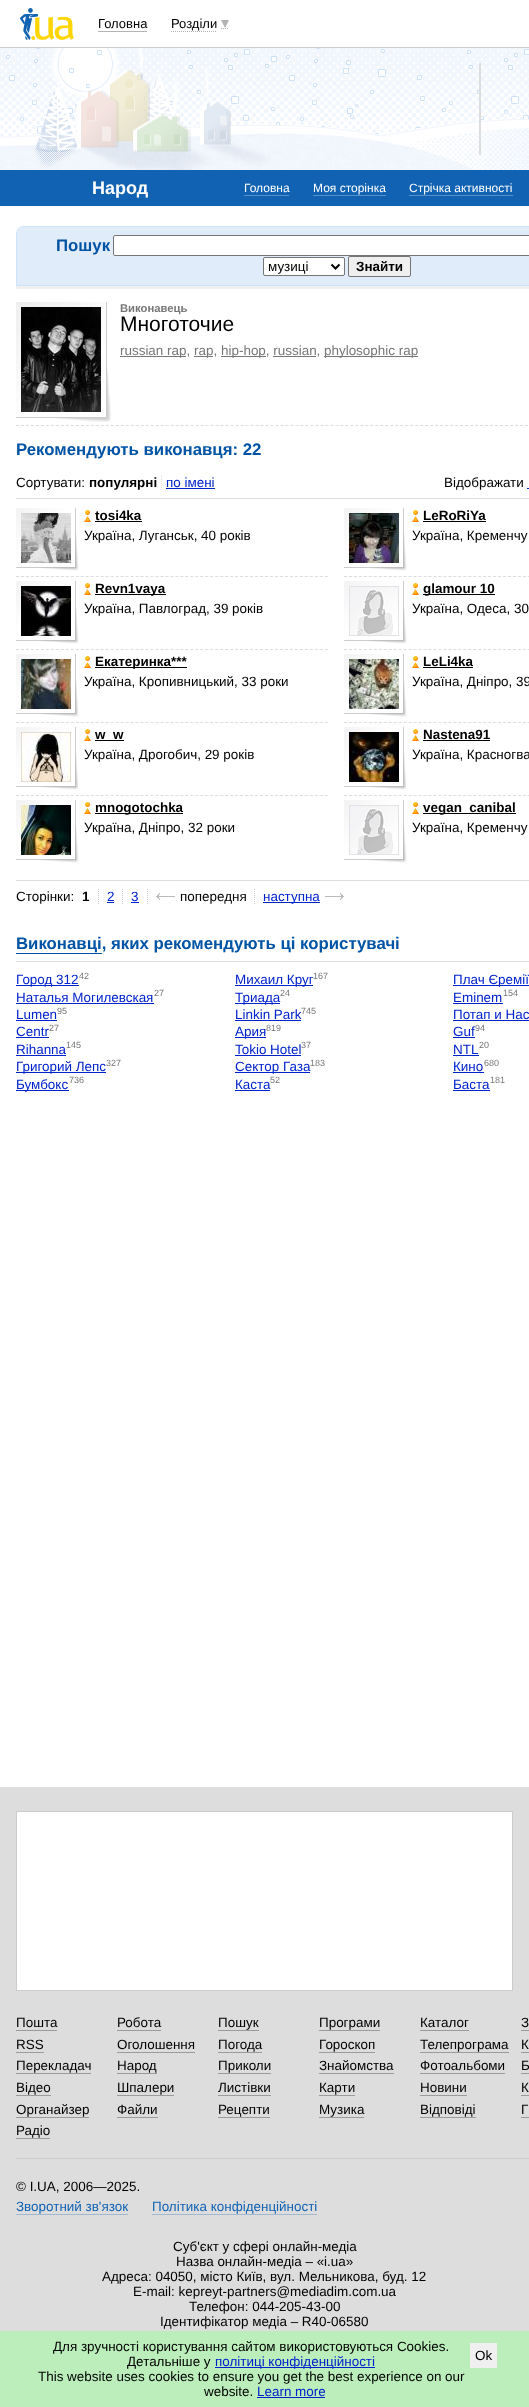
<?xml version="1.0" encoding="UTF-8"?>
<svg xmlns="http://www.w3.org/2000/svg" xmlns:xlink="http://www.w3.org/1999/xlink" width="529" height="2407">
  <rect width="100%" height="100%" fill="#ffffff" />
  <rect y="47" width="529" height="1" fill="#cccccc" />
  <image x="20" y="8" width="54" height="32" xlink:href="image1.png" />
  <rect x="98" y="31" width="49" height="1" fill="#b3b3b3" />
  <path d="M 171 31.5 h 46 m 4 -3 h 8" fill="none" stroke="#b3b3b3" stroke-dasharray="1 1" />
  <path d="M 221 20 h 8 l -4 8 z" fill="#b3b3b3" />
  <image x="0" y="48" width="529" height="122" xlink:href="image2.png" />
  <rect x="479" y="63" width="2" height="92" fill="#dddddd" />
  <rect y="170" width="529" height="36" fill="#1162b3" />
  <rect x="244" y="195" width="45" height="1" fill="#5891ca" />
  <rect x="313" y="195" width="73" height="1" fill="#5891ca" />
  <rect x="409" y="195" width="104" height="1" fill="#5891ca" />
  <rect x="16" y="286" width="513" height="3" fill="#f0f0f0" />
  <rect x="16.5" y="226.5" width="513" height="59" fill="#e1ecfa" stroke="#cee3f7" />
  <image x="16" y="226" width="7" height="7" xlink:href="image3.png" />
  <rect x="113.5" y="235.5" width="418" height="20" rx="1.5" fill="#ffffff" stroke="#767676" />
  <rect x="263.5" y="257.5" width="81" height="18" rx="1.5" fill="#ffffff" stroke="#767676" />
  <path d="M 331.5 264.5 l 4 4 l 4 -4" fill="none" stroke="#000000" stroke-width="2" />
  <rect x="348.5" y="256.5" width="62" height="20" rx="1.5" fill="#efefef" stroke="#767676" />
  <path d="M 16 425.5 h 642" fill="none" stroke="#dddddd" stroke-dasharray="3 1.99" />
  <image x="16" y="302" width="95" height="120" xlink:href="image4.png" />
  <image x="21" y="307" width="80" height="105" xlink:href="image5.png" />
  <rect x="120" y="356" width="66" height="1" fill="#777777" />
  <rect x="194" y="356" width="19" height="1" fill="#777777" />
  <rect x="221" y="356" width="45" height="1" fill="#777777" />
  <rect x="324" y="356" width="94" height="1" fill="#777777" />
  <rect x="273" y="356" width="43" height="1" fill="#777777" />
  <path d="M 161.5 475 v 15" fill="none" stroke="#dddddd" stroke-dasharray="1 1" />
  <rect x="166" y="488" width="49" height="1" fill="#0022cc" />
  <rect x="527" y="488" width="2" height="1" fill="#0022cc" />
  <rect x="16" y="498" width="513" height="1" fill="#dddddd" />
  <path d="M 16 576.5 h 312" fill="none" stroke="#dddddd" stroke-dasharray="3 1.98" />
  <image x="16" y="508" width="63" height="63" xlink:href="image6.png" />
  <image x="21" y="513" width="50" height="50" xlink:href="image7.png" />
  <image x="84" y="510" width="7" height="12" xlink:href="image8.png" />
  <rect x="95" y="521" width="47" height="1" fill="#000000" />
  <path d="M 344 576.5 h 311" fill="none" stroke="#dddddd" stroke-dasharray="3 1.97" />
  <image x="344" y="508" width="63" height="63" xlink:href="image6.png" />
  <image x="349" y="513" width="50" height="50" xlink:href="image9.png" />
  <image x="412" y="510" width="7" height="12" xlink:href="image8.png" />
  <rect x="423" y="521" width="63" height="1" fill="#000000" />
  <path d="M 16 649.5 h 312" fill="none" stroke="#dddddd" stroke-dasharray="3 1.98" />
  <image x="16" y="581" width="63" height="63" xlink:href="image6.png" />
  <image x="21" y="586" width="50" height="50" xlink:href="image10.png" />
  <image x="84" y="583" width="7" height="12" xlink:href="image8.png" />
  <rect x="95" y="594" width="71" height="1" fill="#000000" />
  <path d="M 344 649.5 h 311" fill="none" stroke="#dddddd" stroke-dasharray="3 1.97" />
  <image x="344" y="581" width="63" height="63" xlink:href="image6.png" />
  <image x="349" y="586" width="50" height="50" xlink:href="image11.png" />
  <image x="412" y="583" width="7" height="12" xlink:href="image8.png" />
  <rect x="423" y="594" width="72" height="1" fill="#000000" />
  <path d="M 16 722.5 h 312" fill="none" stroke="#dddddd" stroke-dasharray="3 1.98" />
  <image x="16" y="654" width="63" height="63" xlink:href="image6.png" />
  <image x="21" y="659" width="50" height="50" xlink:href="image12.png" />
  <image x="84" y="656" width="7" height="12" xlink:href="image8.png" />
  <rect x="95" y="667" width="92" height="1" fill="#000000" />
  <path d="M 344 722.5 h 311" fill="none" stroke="#dddddd" stroke-dasharray="3 1.97" />
  <image x="344" y="654" width="63" height="63" xlink:href="image6.png" />
  <image x="349" y="659" width="50" height="50" xlink:href="image13.png" />
  <image x="412" y="656" width="7" height="12" xlink:href="image8.png" />
  <rect x="423" y="667" width="50" height="1" fill="#000000" />
  <path d="M 16 795.5 h 312" fill="none" stroke="#dddddd" stroke-dasharray="3 1.98" />
  <image x="16" y="727" width="63" height="63" xlink:href="image6.png" />
  <image x="21" y="732" width="50" height="50" xlink:href="image14.png" />
  <image x="84" y="729" width="7" height="12" xlink:href="image8.png" />
  <rect x="95" y="740" width="29" height="1" fill="#000000" />
  <path d="M 344 795.5 h 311" fill="none" stroke="#dddddd" stroke-dasharray="3 1.97" />
  <image x="344" y="727" width="63" height="63" xlink:href="image6.png" />
  <image x="349" y="732" width="50" height="50" xlink:href="image15.png" />
  <image x="412" y="729" width="7" height="12" xlink:href="image8.png" />
  <rect x="423" y="740" width="67" height="1" fill="#000000" />
  <image x="16" y="800" width="63" height="63" xlink:href="image6.png" />
  <image x="21" y="805" width="50" height="50" xlink:href="image16.png" />
  <image x="84" y="802" width="7" height="12" xlink:href="image8.png" />
  <rect x="95" y="813" width="88" height="1" fill="#000000" />
  <image x="344" y="800" width="63" height="63" xlink:href="image6.png" />
  <image x="349" y="805" width="50" height="50" xlink:href="image11.png" />
  <image x="412" y="802" width="7" height="12" xlink:href="image8.png" />
  <rect x="423" y="813" width="93" height="1" fill="#000000" />
  <rect x="16" y="880" width="513" height="1" fill="#dddddd" />
  <path d="M 98.5 889 v 15" fill="none" stroke="#cccccc" stroke-dasharray="1 1" />
  <path d="M 122.5 889 v 15" fill="none" stroke="#cccccc" stroke-dasharray="1 1" />
  <rect x="107" y="902" width="7" height="1" fill="#0022cc" />
  <path d="M 147.5 889 v 15" fill="none" stroke="#cccccc" stroke-dasharray="1 1" />
  <rect x="131" y="902" width="8" height="1" fill="#0022cc" />
  <path d="M 254.5 889 v 15" fill="none" stroke="#cccccc" stroke-dasharray="1 1" />
  <image x="156" y="893" width="19" height="7" xlink:href="image17.png" />
  <rect x="263" y="902" width="57" height="1" fill="#0022cc" />
  <image x="325" y="893" width="19" height="7" xlink:href="image18.png" />
  <rect x="16" y="953" width="86" height="1" fill="#0053a5" />
  <rect x="16" y="961" width="513" height="1" fill="#dddddd" />
  <rect x="16" y="985" width="63" height="1" fill="#0022cc" />
  <rect x="235" y="985" width="78" height="1" fill="#0022cc" />
  <rect x="453" y="985" width="76" height="1" fill="#0022cc" />
  <rect x="16" y="1003" width="138" height="1" fill="#0022cc" />
  <rect x="235" y="1003" width="45" height="1" fill="#0022cc" />
  <rect x="453" y="1003" width="50" height="1" fill="#0022cc" />
  <rect x="16" y="1020" width="41" height="1" fill="#0022cc" />
  <rect x="235" y="1020" width="66" height="1" fill="#0022cc" />
  <rect x="453" y="1020" width="76" height="1" fill="#0022cc" />
  <rect x="16" y="1037" width="33" height="1" fill="#0022cc" />
  <rect x="235" y="1037" width="31" height="1" fill="#0022cc" />
  <rect x="453" y="1037" width="22" height="1" fill="#0022cc" />
  <rect x="16" y="1055" width="50" height="1" fill="#0022cc" />
  <rect x="235" y="1055" width="66" height="1" fill="#0022cc" />
  <rect x="453" y="1055" width="26" height="1" fill="#0022cc" />
  <rect x="16" y="1072" width="90" height="1" fill="#0022cc" />
  <rect x="235" y="1072" width="75" height="1" fill="#0022cc" />
  <rect x="453" y="1072" width="31" height="1" fill="#0022cc" />
  <rect x="16" y="1090" width="53" height="1" fill="#0022cc" />
  <rect x="235" y="1090" width="35" height="1" fill="#0022cc" />
  <rect x="453" y="1090" width="37" height="1" fill="#0022cc" />
  <rect y="1787" width="529" height="544" fill="#dddddd" />
  <rect x="16.5" y="1811.5" width="496" height="179" fill="#ffffff" stroke="#cccccc" />
  <rect x="16" y="2030" width="41" height="1" fill="#9b9b9b" />
  <rect x="117" y="2030" width="44" height="1" fill="#9b9b9b" />
  <rect x="218" y="2030" width="41" height="1" fill="#9b9b9b" />
  <rect x="319" y="2030" width="61" height="1" fill="#9b9b9b" />
  <rect x="420" y="2030" width="49" height="1" fill="#9b9b9b" />
  <rect x="521" y="2030" width="8" height="1" fill="#9b9b9b" />
  <rect x="16" y="2052" width="28" height="1" fill="#9b9b9b" />
  <rect x="117" y="2052" width="78" height="1" fill="#9b9b9b" />
  <rect x="218" y="2052" width="44" height="1" fill="#9b9b9b" />
  <rect x="319" y="2052" width="56" height="1" fill="#9b9b9b" />
  <rect x="420" y="2052" width="89" height="1" fill="#9b9b9b" />
  <rect x="521" y="2052" width="8" height="1" fill="#9b9b9b" />
  <rect x="16" y="2073" width="75" height="1" fill="#9b9b9b" />
  <rect x="117" y="2073" width="40" height="1" fill="#9b9b9b" />
  <rect x="218" y="2073" width="53" height="1" fill="#9b9b9b" />
  <rect x="319" y="2073" width="75" height="1" fill="#9b9b9b" />
  <rect x="420" y="2073" width="85" height="1" fill="#9b9b9b" />
  <rect x="521" y="2073" width="8" height="1" fill="#9b9b9b" />
  <rect x="16" y="2095" width="35" height="1" fill="#9b9b9b" />
  <rect x="117" y="2095" width="57" height="1" fill="#9b9b9b" />
  <rect x="218" y="2095" width="53" height="1" fill="#9b9b9b" />
  <rect x="319" y="2095" width="36" height="1" fill="#9b9b9b" />
  <rect x="420" y="2095" width="47" height="1" fill="#9b9b9b" />
  <rect x="521" y="2095" width="8" height="1" fill="#9b9b9b" />
  <rect x="16" y="2117" width="73" height="1" fill="#9b9b9b" />
  <rect x="117" y="2117" width="41" height="1" fill="#9b9b9b" />
  <rect x="218" y="2117" width="52" height="1" fill="#9b9b9b" />
  <rect x="319" y="2117" width="45" height="1" fill="#9b9b9b" />
  <rect x="420" y="2117" width="56" height="1" fill="#9b9b9b" />
  <rect x="521" y="2117" width="8" height="1" fill="#9b9b9b" />
  <rect x="16" y="2138" width="34" height="1" fill="#9b9b9b" />
  <rect x="16" y="2158" width="513" height="1" fill="#cccccc" />
  <rect x="16" y="2214" width="112" height="1" fill="#a0b8d0" />
  <rect x="152" y="2214" width="165" height="1" fill="#a0b8d0" />
  <rect y="2331" width="529" height="76" fill="#bbeebb" />
  <rect x="215" y="2367" width="160" height="1" fill="#0022cc" />
  <rect x="470" y="2343" width="27" height="25" fill="#f0f0f0" />
  <rect x="257" y="2397" width="68" height="1" fill="#0022cc" />
  <text x="98" y="28" style="font-family: Liberation Sans; font-size: 13px; fill: #000000">Головна</text>
  <text x="171" y="28" style="font-family: Liberation Sans; font-size: 13px; fill: #000000">Розділи</text>
  <text x="92" y="194" style="font-family: Liberation Sans; font-size: 18px; font-weight: bold; fill: #ffffff">Народ</text>
  <text x="244" y="192" style="font-family: Liberation Sans; font-size: 12px; fill: #ffffff">Головна</text>
  <text x="313" y="192" style="font-family: Liberation Sans; font-size: 12px; fill: #ffffff">Моя сторінка</text>
  <text x="409" y="192" style="font-family: Liberation Sans; font-size: 12px; fill: #ffffff">Стрічка активності</text>
  <text x="56" y="251" style="font-family: Liberation Sans; font-size: 16.8px; font-weight: bold; fill: #0053a5">Пошук</text>
  <text x="268" y="271" style="font-family: Liberation Sans; font-size: 13.45px; fill: #000000">музиці</text>
  <text x="356" y="271" style="font-family: Liberation Sans; font-size: 13.45px; font-weight: bold; fill: #000000">Знайти</text>
  <text x="120" y="312" style="font-family: Liberation Sans; font-size: 11.25px; font-weight: bold; fill: #777777">Виконавець</text>
  <text x="120" y="331" style="font-family: Liberation Sans; font-size: 21px; fill: #000000">Многоточие</text>
  <text x="120" y="355" style="font-family: Liberation Sans; font-size: 13.45px; fill: #777777">russian rap,</text>
  <text x="194" y="355" style="font-family: Liberation Sans; font-size: 13.45px; fill: #777777">rap,</text>
  <text x="221" y="355" style="font-family: Liberation Sans; font-size: 13.45px; fill: #777777">hip-hop, russian,</text>
  <text x="324" y="355" style="font-family: Liberation Sans; font-size: 13.45px; fill: #777777">phylosophic rap</text>
  <text x="16" y="455" style="font-family: Liberation Sans; font-size: 16.8px; font-weight: bold; fill: #0053a5">Рекомендують виконавця: 22</text>
  <text x="16" y="487" style="font-family: Liberation Sans; font-size: 13.45px; fill: #000000">Сортувати:</text>
  <text x="89" y="487" style="font-family: Liberation Sans; font-size: 13.45px; font-weight: bold; fill: #000000">популярні</text>
  <text x="166" y="487" style="font-family: Liberation Sans; font-size: 13.45px; fill: #0022cc">по імені</text>
  <text x="444" y="487" style="font-family: Liberation Sans; font-size: 13.45px; fill: #000000">Відображати</text>
  <text x="95" y="520" style="font-family: Liberation Sans; font-size: 13.45px; font-weight: bold; fill: #000000">tosi4ka</text>
  <text x="84" y="540" style="font-family: Liberation Sans; font-size: 13.45px; fill: #000000">Україна, Луганськ, 40 років</text>
  <text x="423" y="520" style="font-family: Liberation Sans; font-size: 13.45px; font-weight: bold; fill: #000000">LeRoRiYa</text>
  <text x="412" y="540" style="font-family: Liberation Sans; font-size: 13.45px; fill: #000000">Україна, Кременчу</text>
  <text x="95" y="593" style="font-family: Liberation Sans; font-size: 13.45px; font-weight: bold; fill: #000000">Revn1vaya</text>
  <text x="84" y="613" style="font-family: Liberation Sans; font-size: 13.45px; fill: #000000">Україна, Павлоград, 39 років</text>
  <text x="423" y="593" style="font-family: Liberation Sans; font-size: 13.45px; font-weight: bold; fill: #000000">glamour 10</text>
  <text x="412" y="613" style="font-family: Liberation Sans; font-size: 13.45px; fill: #000000">Україна, Одеса, 30</text>
  <text x="95" y="666" style="font-family: Liberation Sans; font-size: 13.45px; font-weight: bold; fill: #000000">Екатеринка***</text>
  <text x="84" y="686" style="font-family: Liberation Sans; font-size: 13.45px; fill: #000000">Україна, Кропивницький, 33 роки</text>
  <text x="423" y="666" style="font-family: Liberation Sans; font-size: 13.45px; font-weight: bold; fill: #000000">LeLi4ka</text>
  <text x="412" y="686" style="font-family: Liberation Sans; font-size: 13.45px; fill: #000000">Україна, Дніпро, 39</text>
  <text x="95" y="739" style="font-family: Liberation Sans; font-size: 13.45px; font-weight: bold; fill: #000000">w_w</text>
  <text x="84" y="759" style="font-family: Liberation Sans; font-size: 13.45px; fill: #000000">Україна, Дрогобич, 29 років</text>
  <text x="423" y="739" style="font-family: Liberation Sans; font-size: 13.45px; font-weight: bold; fill: #000000">Nastena91</text>
  <text x="412" y="759" style="font-family: Liberation Sans; font-size: 13.45px; fill: #000000">Україна, Красногва</text>
  <text x="95" y="812" style="font-family: Liberation Sans; font-size: 13.45px; font-weight: bold; fill: #000000">mnogotochka</text>
  <text x="84" y="832" style="font-family: Liberation Sans; font-size: 13.45px; fill: #000000">Україна, Дніпро, 32 роки</text>
  <text x="423" y="812" style="font-family: Liberation Sans; font-size: 13.45px; font-weight: bold; fill: #000000">vegan_canibal</text>
  <text x="412" y="832" style="font-family: Liberation Sans; font-size: 13.45px; fill: #000000">Україна, Кременчу</text>
  <text x="16" y="901" style="font-family: Liberation Sans; font-size: 13.45px; fill: #000000">Сторінки:</text>
  <text x="82" y="901" style="font-family: Liberation Sans; font-size: 13.45px; font-weight: bold; fill: #000000">1</text>
  <text x="107" y="901" style="font-family: Liberation Sans; font-size: 13.45px; fill: #0022cc">2</text>
  <text x="131" y="901" style="font-family: Liberation Sans; font-size: 13.45px; fill: #0022cc">3</text>
  <text x="180" y="901" style="font-family: Liberation Sans; font-size: 13.45px; fill: #000000">попередня</text>
  <text x="263" y="901" style="font-family: Liberation Sans; font-size: 13.45px; fill: #0022cc">наступна</text>
  <text x="16" y="949" style="font-family: Liberation Sans; font-size: 16.8px; font-weight: bold; fill: #0053a5">Виконавці, яких рекомендують ці користувачі</text>
  <text x="16" y="984" style="font-family: Liberation Sans; font-size: 13.45px; fill: #0022cc">Город 312</text>
  <text x="79" y="979" style="font-family: Liberation Sans; font-size: 9px; fill: #777777">42</text>
  <text x="235" y="984" style="font-family: Liberation Sans; font-size: 13.45px; fill: #0022cc">Михаил Круг</text>
  <text x="313" y="979" style="font-family: Liberation Sans; font-size: 9px; fill: #777777">167</text>
  <text x="453" y="984" style="font-family: Liberation Sans; font-size: 13.45px; fill: #0022cc">Плач Єремії</text>
  <text x="16" y="1002" style="font-family: Liberation Sans; font-size: 13.45px; fill: #0022cc">Наталья Могилевская</text>
  <text x="154" y="996" style="font-family: Liberation Sans; font-size: 9px; fill: #777777">27</text>
  <text x="235" y="1002" style="font-family: Liberation Sans; font-size: 13.45px; fill: #0022cc">Триада</text>
  <text x="280" y="996" style="font-family: Liberation Sans; font-size: 9px; fill: #777777">24</text>
  <text x="453" y="1002" style="font-family: Liberation Sans; font-size: 13.45px; fill: #0022cc">Eminem</text>
  <text x="503" y="996" style="font-family: Liberation Sans; font-size: 9px; fill: #777777">154</text>
  <text x="16" y="1019" style="font-family: Liberation Sans; font-size: 13.45px; fill: #0022cc">Lumen</text>
  <text x="57" y="1014" style="font-family: Liberation Sans; font-size: 9px; fill: #777777">95</text>
  <text x="235" y="1019" style="font-family: Liberation Sans; font-size: 13.45px; fill: #0022cc">Linkin Park</text>
  <text x="301" y="1014" style="font-family: Liberation Sans; font-size: 9px; fill: #777777">745</text>
  <text x="453" y="1019" style="font-family: Liberation Sans; font-size: 13.45px; fill: #0022cc">Потап и Нас</text>
  <text x="16" y="1036" style="font-family: Liberation Sans; font-size: 13.45px; fill: #0022cc">Centr</text>
  <text x="49" y="1031" style="font-family: Liberation Sans; font-size: 9px; fill: #777777">27</text>
  <text x="235" y="1036" style="font-family: Liberation Sans; font-size: 13.45px; fill: #0022cc">Ария</text>
  <text x="266" y="1031" style="font-family: Liberation Sans; font-size: 9px; fill: #777777">819</text>
  <text x="453" y="1036" style="font-family: Liberation Sans; font-size: 13.45px; fill: #0022cc">Guf</text>
  <text x="475" y="1031" style="font-family: Liberation Sans; font-size: 9px; fill: #777777">94</text>
  <text x="16" y="1054" style="font-family: Liberation Sans; font-size: 13.45px; fill: #0022cc">Rihanna</text>
  <text x="66" y="1048" style="font-family: Liberation Sans; font-size: 9px; fill: #777777">145</text>
  <text x="235" y="1054" style="font-family: Liberation Sans; font-size: 13.45px; fill: #0022cc">Tokio Hotel</text>
  <text x="301" y="1048" style="font-family: Liberation Sans; font-size: 9px; fill: #777777">37</text>
  <text x="453" y="1054" style="font-family: Liberation Sans; font-size: 13.45px; fill: #0022cc">NTL</text>
  <text x="479" y="1048" style="font-family: Liberation Sans; font-size: 9px; fill: #777777">20</text>
  <text x="16" y="1071" style="font-family: Liberation Sans; font-size: 13.45px; fill: #0022cc">Григорий Лепс</text>
  <text x="106" y="1066" style="font-family: Liberation Sans; font-size: 9px; fill: #777777">327</text>
  <text x="235" y="1071" style="font-family: Liberation Sans; font-size: 13.45px; fill: #0022cc">Сектор Газа</text>
  <text x="310" y="1066" style="font-family: Liberation Sans; font-size: 9px; fill: #777777">183</text>
  <text x="453" y="1071" style="font-family: Liberation Sans; font-size: 13.45px; fill: #0022cc">Кино</text>
  <text x="484" y="1066" style="font-family: Liberation Sans; font-size: 9px; fill: #777777">680</text>
  <text x="16" y="1089" style="font-family: Liberation Sans; font-size: 13.45px; fill: #0022cc">Бумбокс</text>
  <text x="69" y="1083" style="font-family: Liberation Sans; font-size: 9px; fill: #777777">736</text>
  <text x="235" y="1089" style="font-family: Liberation Sans; font-size: 13.45px; fill: #0022cc">Каста</text>
  <text x="270" y="1083" style="font-family: Liberation Sans; font-size: 9px; fill: #777777">52</text>
  <text x="453" y="1089" style="font-family: Liberation Sans; font-size: 13.45px; fill: #0022cc">Баста</text>
  <text x="490" y="1083" style="font-family: Liberation Sans; font-size: 9px; fill: #777777">181</text>
  <text x="16" y="2027" style="font-family: Liberation Sans; font-size: 13.45px; fill: #000000">Пошта</text>
  <text x="117" y="2027" style="font-family: Liberation Sans; font-size: 13.45px; fill: #000000">Робота</text>
  <text x="218" y="2027" style="font-family: Liberation Sans; font-size: 13.45px; fill: #000000">Пошук</text>
  <text x="319" y="2027" style="font-family: Liberation Sans; font-size: 13.45px; fill: #000000">Програми</text>
  <text x="420" y="2027" style="font-family: Liberation Sans; font-size: 13.45px; fill: #000000">Каталог</text>
  <text x="521" y="2027" style="font-family: Liberation Sans; font-size: 13.45px; fill: #000000">З</text>
  <text x="16" y="2049" style="font-family: Liberation Sans; font-size: 13.45px; fill: #000000">RSS</text>
  <text x="117" y="2049" style="font-family: Liberation Sans; font-size: 13.45px; fill: #000000">Оголошення</text>
  <text x="218" y="2049" style="font-family: Liberation Sans; font-size: 13.45px; fill: #000000">Погода</text>
  <text x="319" y="2049" style="font-family: Liberation Sans; font-size: 13.45px; fill: #000000">Гороскоп</text>
  <text x="420" y="2049" style="font-family: Liberation Sans; font-size: 13.45px; fill: #000000">Телепрограма</text>
  <text x="521" y="2049" style="font-family: Liberation Sans; font-size: 13.45px; fill: #000000">К</text>
  <text x="16" y="2070" style="font-family: Liberation Sans; font-size: 13.45px; fill: #000000">Перекладач</text>
  <text x="117" y="2070" style="font-family: Liberation Sans; font-size: 13.45px; fill: #000000">Народ</text>
  <text x="218" y="2070" style="font-family: Liberation Sans; font-size: 13.45px; fill: #000000">Приколи</text>
  <text x="319" y="2070" style="font-family: Liberation Sans; font-size: 13.45px; fill: #000000">Знайомства</text>
  <text x="420" y="2070" style="font-family: Liberation Sans; font-size: 13.45px; fill: #000000">Фотоальбоми</text>
  <text x="521" y="2070" style="font-family: Liberation Sans; font-size: 13.45px; fill: #000000">Б</text>
  <text x="16" y="2092" style="font-family: Liberation Sans; font-size: 13.45px; fill: #000000">Відео</text>
  <text x="117" y="2092" style="font-family: Liberation Sans; font-size: 13.45px; fill: #000000">Шпалери</text>
  <text x="218" y="2092" style="font-family: Liberation Sans; font-size: 13.45px; fill: #000000">Листівки</text>
  <text x="319" y="2092" style="font-family: Liberation Sans; font-size: 13.45px; fill: #000000">Карти</text>
  <text x="420" y="2092" style="font-family: Liberation Sans; font-size: 13.45px; fill: #000000">Новини</text>
  <text x="521" y="2092" style="font-family: Liberation Sans; font-size: 13.45px; fill: #000000">К</text>
  <text x="16" y="2114" style="font-family: Liberation Sans; font-size: 13.45px; fill: #000000">Органайзер</text>
  <text x="117" y="2114" style="font-family: Liberation Sans; font-size: 13.45px; fill: #000000">Файли</text>
  <text x="218" y="2114" style="font-family: Liberation Sans; font-size: 13.45px; fill: #000000">Рецепти</text>
  <text x="319" y="2114" style="font-family: Liberation Sans; font-size: 13.45px; fill: #000000">Музика</text>
  <text x="420" y="2114" style="font-family: Liberation Sans; font-size: 13.45px; fill: #000000">Відповіді</text>
  <text x="521" y="2114" style="font-family: Liberation Sans; font-size: 13.45px; fill: #000000">Г</text>
  <text x="16" y="2135" style="font-family: Liberation Sans; font-size: 13.45px; fill: #000000">Радіо</text>
  <text x="16" y="2191" style="font-family: Liberation Sans; font-size: 13.45px; fill: #000000">© I.UA, 2006—2025.</text>
  <text x="16" y="2211" style="font-family: Liberation Sans; font-size: 13.45px; fill: #1162b3">Зворотний зв'язок</text>
  <text x="152" y="2211" style="font-family: Liberation Sans; font-size: 13.45px; fill: #1162b3">Політика конфіденційності</text>
  <text x="173" y="2251" style="font-family: Liberation Sans; font-size: 13.45px; fill: #000000">Суб'єкт у сфері онлайн-медіа</text>
  <text x="176" y="2266" style="font-family: Liberation Sans; font-size: 13.45px; fill: #000000">Назва онлайн-медіа – «i.ua»</text>
  <text x="102" y="2281" style="font-family: Liberation Sans; font-size: 13.45px; fill: #000000">Адреса: 04050, місто Київ, вул. Мельникова, буд. 12</text>
  <text x="133" y="2296" style="font-family: Liberation Sans; font-size: 13.45px; fill: #000000">E-mail: kepreyt-partners@mediadim.com.ua</text>
  <text x="189" y="2311" style="font-family: Liberation Sans; font-size: 13.45px; fill: #000000">Телефон: 044-205-43-00</text>
  <text x="160" y="2326" style="font-family: Liberation Sans; font-size: 13.45px; fill: #000000">Ідентифікатор медіа – R40-06580</text>
  <text x="53" y="2351" style="font-family: Liberation Sans; font-size: 13.45px; fill: #000000">Для зручності користування сайтом використовуються Cookies.</text>
  <text x="127" y="2366" style="font-family: Liberation Sans; font-size: 13.45px; fill: #000000">Детальніше у</text>
  <text x="215" y="2366" style="font-family: Liberation Sans; font-size: 13.45px; fill: #0022cc">політиці конфіденційності</text>
  <text x="475" y="2360" style="font-family: Liberation Sans; font-size: 13.45px; fill: #000000">Ok</text>
  <text x="38" y="2381" style="font-family: Liberation Sans; font-size: 13.45px; fill: #000000">This website uses cookies to ensure you get the best experience on our</text>
  <text x="204" y="2396" style="font-family: Liberation Sans; font-size: 13.45px; fill: #000000">website.</text>
  <text x="257" y="2396" style="font-family: Liberation Sans; font-size: 13.45px; fill: #0022cc">Learn more</text>
</svg>
